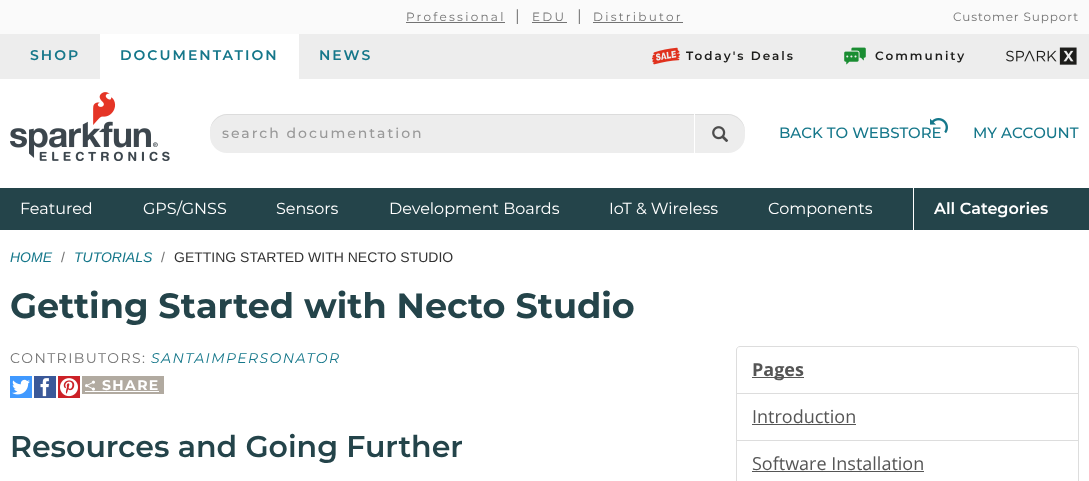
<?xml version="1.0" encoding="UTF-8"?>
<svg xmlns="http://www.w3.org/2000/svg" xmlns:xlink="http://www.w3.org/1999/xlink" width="1089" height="481">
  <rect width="100%" height="100%" fill="#ffffff" />
  <rect width="1089" height="34" fill="#fafafa" />
  <rect x="406" y="22" width="99" height="1" fill="#737373" />
  <rect x="532" y="22" width="35" height="1" fill="#737373" />
  <rect x="593" y="22" width="90" height="1" fill="#737373" />
  <rect y="34" width="1089" height="45" fill="#ededed" />
  <rect x="100" y="34" width="199" height="45" fill="#ffffff" />
  <image x="652" y="47" width="28" height="18" xlink:href="image1.png" />
  <image x="844" y="47" width="22" height="18" xlink:href="image2.png" />
  <image x="1006" y="47" width="71" height="18" xlink:href="image3.png" />
  <image x="10" y="92" width="160" height="69" xlink:href="image4.png" />
  <rect x="210" y="114" width="535" height="39" rx="17" fill="#ededed" />
  <path d="M 227 115 h 501 c 9 0 17 8 17 17 v -1 c 0 -9 -8 -17 -17 -17 h -501 c -9 0 -17 8 -17 17 v 1 c 0 -9 8 -17 17 -17 z" fill="#000000" fill-opacity="0.07" />
  <rect x="694" y="114" width="1" height="39" fill="#ffffff" />
  <image x="712" y="126" width="17" height="16" xlink:href="image5.png" />
  <rect y="188" width="1089" height="42" fill="#24444a" />
  <rect x="913" y="188" width="1" height="42" fill="#ffffff" />
  <rect x="10" y="376" width="22" height="22" fill="#4099ff" />
  <image x="12" y="379" width="18" height="16" xlink:href="image7.png" />
  <rect x="34" y="376" width="22" height="22" fill="#3b5999" />
  <image x="40" y="378" width="9" height="19" xlink:href="image8.png" />
  <rect x="58" y="376" width="22" height="22" fill="#cc2127" />
  <image x="60" y="378" width="18" height="19" xlink:href="image9.png" />
  <rect x="82" y="376" width="82" height="18" fill="#b1aaa0" />
  <image x="85" y="380" width="10" height="11" xlink:href="image10.png" />
  <rect x="85" y="391" width="74" height="1" fill="#ffffff" />
  <path d="M 740 346.5 h 335 c 2 0 3.5 1.5 3.5 3.5 v 43.5 h -342 v -43.5 c 0 -2 1.5 -3.5 3.5 -3.5 z" fill="none" stroke="#dddddd" />
  <rect x="752" y="377" width="52" height="1" fill="#555555" />
  <rect x="736.5" y="393.5" width="342" height="47" fill="none" stroke="#dddddd" />
  <rect x="752" y="424" width="104" height="1" fill="#555555" />
  <rect x="736.5" y="440.5" width="342" height="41" fill="none" stroke="#dddddd" />
  <rect x="752" y="471" width="172" height="1" fill="#555555" />
  <text x="406" y="21" style="font-family: Montserrat; font-size: 12px; letter-spacing: 2.25px; fill: #737373">Professional</text>
  <text x="515" y="21" style="font-family: Montserrat; font-size: 16px; letter-spacing: 2.25px; fill: #737373">|</text>
  <text x="532" y="21" style="font-family: Montserrat; font-size: 12px; letter-spacing: 2.25px; fill: #737373">EDU</text>
  <text x="577" y="21" style="font-family: Montserrat; font-size: 16px; letter-spacing: 2.25px; fill: #737373">|</text>
  <text x="593" y="21" style="font-family: Montserrat; font-size: 12px; letter-spacing: 2.25px; fill: #737373">Distributor</text>
  <text x="953" y="21" style="font-family: Montserrat; font-size: 12px; letter-spacing: 0.9px; fill: #737373">Customer Support</text>
  <text x="30" y="60" style="font-family: Montserrat; font-size: 14px; font-weight: 600; letter-spacing: 2px; fill: #15778a">SHOP</text>
  <text x="120" y="60" style="font-family: Montserrat; font-size: 14px; font-weight: 600; letter-spacing: 2px; fill: #15778a">DOCUMENTATION</text>
  <text x="319" y="60" style="font-family: Montserrat; font-size: 14px; font-weight: 600; letter-spacing: 2px; fill: #15778a">NEWS</text>
  <text x="686" y="60" style="font-family: Montserrat; font-size: 12px; font-weight: 600; letter-spacing: 2px; fill: #1d1d1b">Today's Deals</text>
  <text x="875" y="60" style="font-family: Montserrat; font-size: 12px; font-weight: 600; letter-spacing: 2px; fill: #1d1d1b">Community</text>
  <text x="222" y="138" style="font-family: Montserrat; font-size: 14px; font-weight: 500; letter-spacing: 2px; fill: #999999">search documentation</text>
  <text x="779" y="138" style="font-family: Montserrat; font-size: 15px; font-weight: 500; fill: #15778a">BACK TO WEBSTORE</text>
  <image x="930" y="118" width="18" height="15" xlink:href="image6.png" />
  <text x="973" y="138" style="font-family: Montserrat; font-size: 15px; font-weight: 500; fill: #15778a">MY ACCOUNT</text>
  <text x="20" y="214" style="font-family: Montserrat; font-size: 16px; fill: #ffffff">Featured</text>
  <text x="143" y="214" style="font-family: Montserrat; font-size: 16px; fill: #ffffff">GPS/GNSS</text>
  <text x="276" y="214" style="font-family: Montserrat; font-size: 16px; fill: #ffffff">Sensors</text>
  <text x="389" y="214" style="font-family: Montserrat; font-size: 16px; fill: #ffffff">Development Boards</text>
  <text x="609" y="214" style="font-family: Montserrat; font-size: 16px; fill: #ffffff">IoT &amp; Wireless</text>
  <text x="768" y="214" style="font-family: Montserrat; font-size: 16px; fill: #ffffff">Components</text>
  <text x="934" y="214" style="font-family: Montserrat; font-size: 16px; font-weight: 600; fill: #ffffff">All Categories</text>
  <text x="10" y="262" style="font-family: Liberation Sans; font-size: 14px; font-style: italic; fill: #15778a">HOME</text>
  <text x="61" y="262" style="font-family: Liberation Sans; font-size: 14px; fill: #737373">/</text>
  <text x="74" y="262" style="font-family: Liberation Sans; font-size: 14px; font-style: italic; fill: #15778a">TUTORIALS</text>
  <text x="161" y="262" style="font-family: Liberation Sans; font-size: 14px; fill: #737373">/</text>
  <text x="174" y="262" style="font-family: Liberation Sans; font-size: 14px; fill: #333333">GETTING STARTED WITH NECTO STUDIO</text>
  <text x="10" y="318" style="font-family: Montserrat; font-size: 35px; font-weight: bold; fill: #24444a">Getting Started with Necto Studio</text>
  <text x="10" y="363" style="font-family: Montserrat; font-size: 14px; letter-spacing: 1.4px; fill: #737373">CONTRIBUTORS:</text>
  <text x="151" y="363" style="font-family: Montserrat; font-size: 14px; font-style: italic; letter-spacing: 1.4px; fill: #15778a">SANTAIMPERSONATOR</text>
  <text x="102" y="390" style="font-family: Montserrat; font-size: 14px; font-weight: bold; letter-spacing: 1.4px; fill: #ffffff">SHARE</text>
  <text x="10" y="457" style="font-family: Montserrat; font-size: 30px; font-weight: 600; fill: #24444a">Resources and Going Further</text>
  <text x="752" y="376" style="font-family: Open Sans; font-size: 18px; font-weight: bold; fill: #555555">Pages</text>
  <text x="752" y="423" style="font-family: Open Sans; font-size: 18px; fill: #555555">Introduction</text>
  <text x="752" y="470" style="font-family: Open Sans; font-size: 18px; fill: #555555">Software Installation</text>
</svg>
